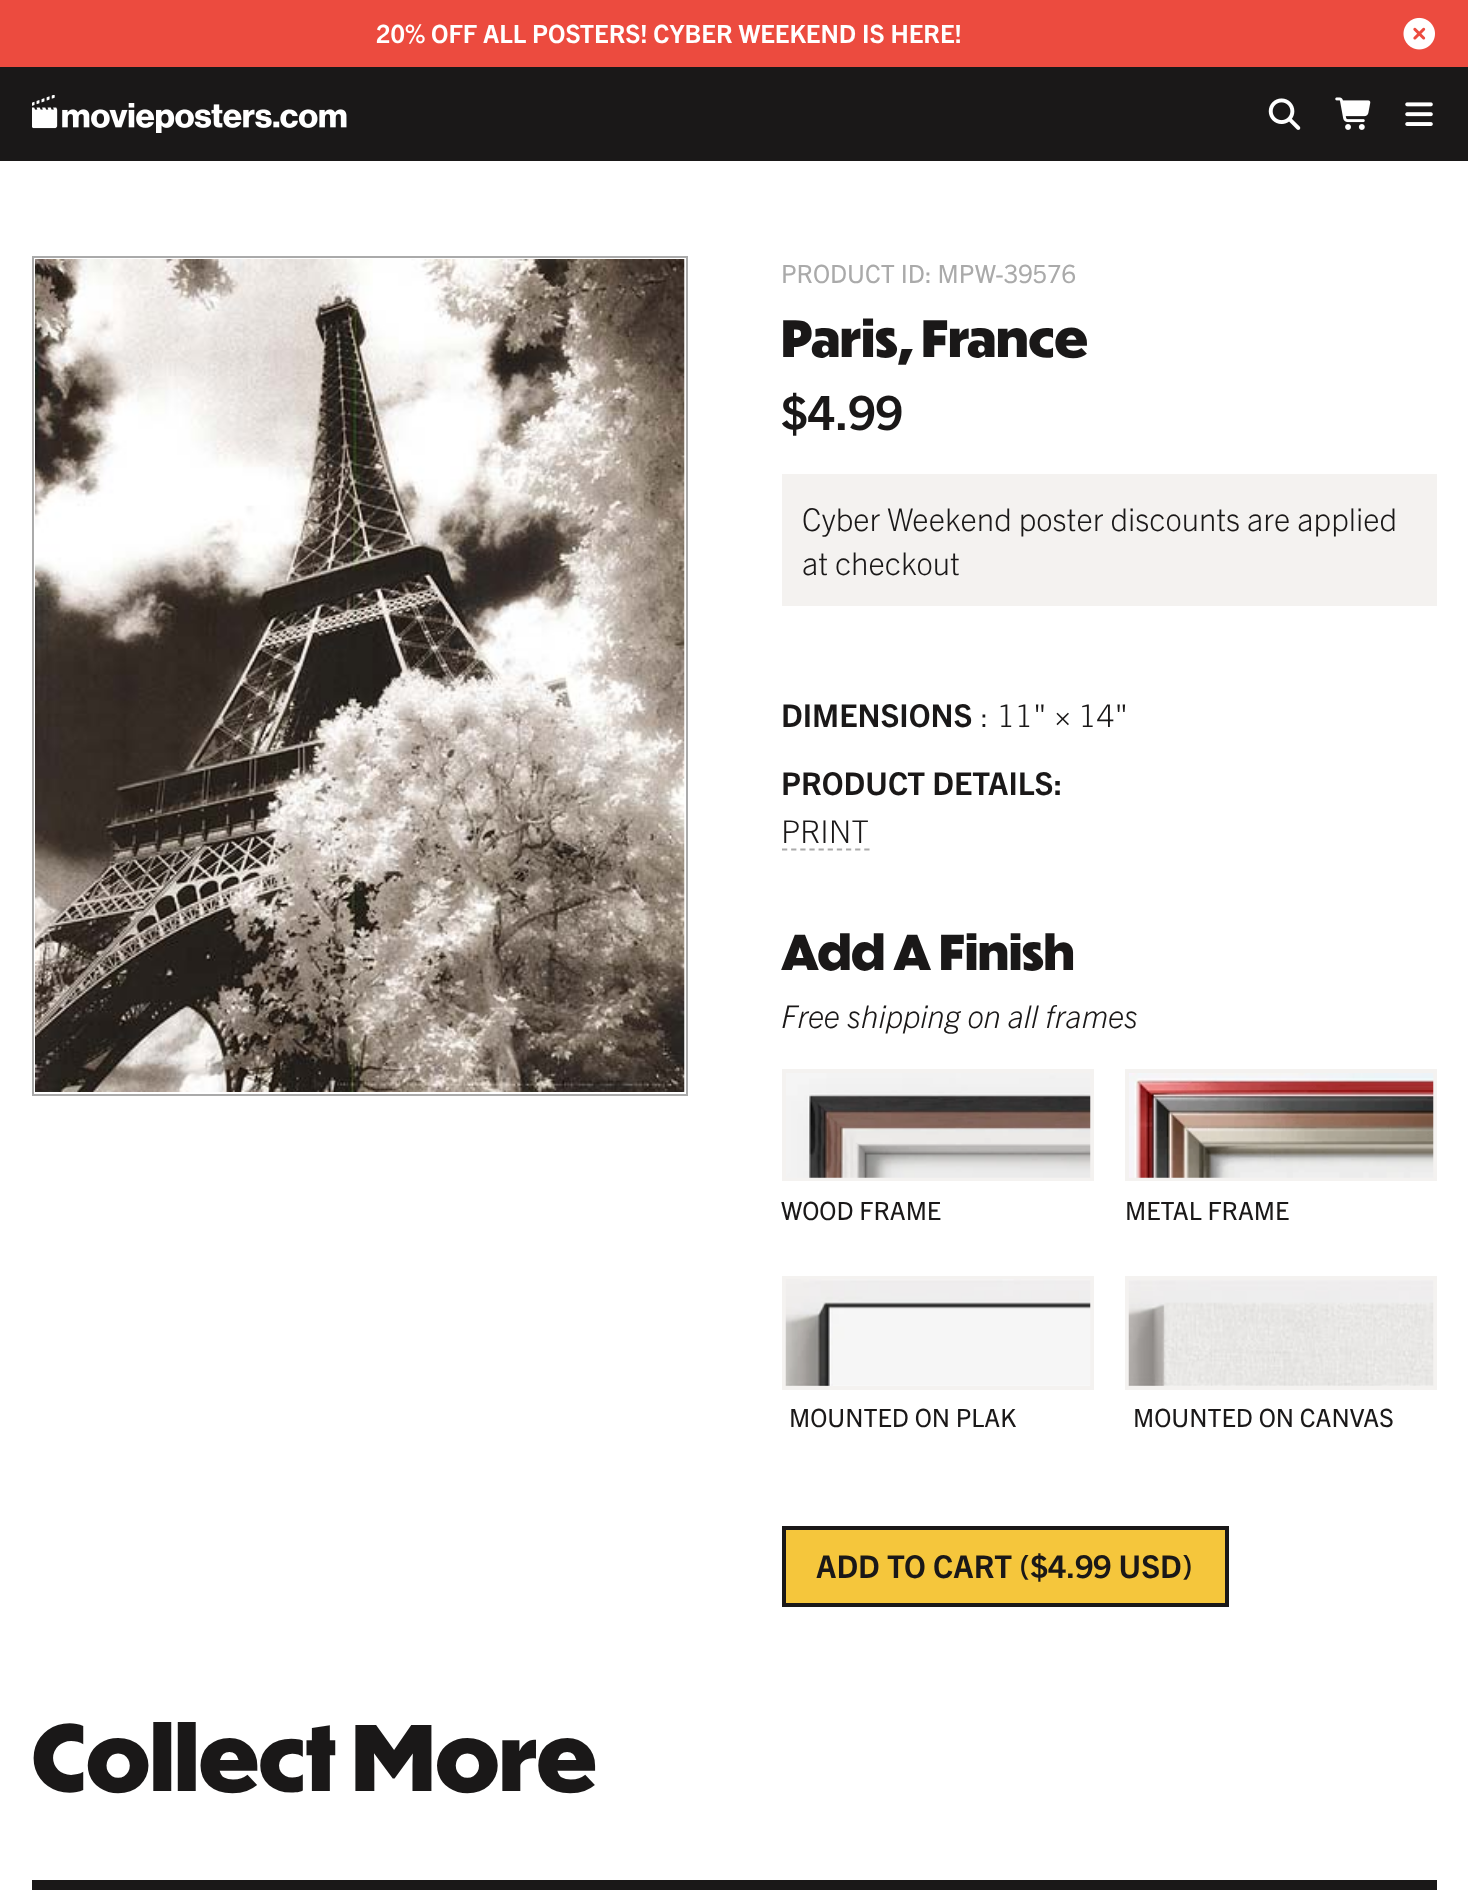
<?xml version="1.0" encoding="UTF-8"?>
<svg xmlns="http://www.w3.org/2000/svg" xmlns:xlink="http://www.w3.org/1999/xlink" width="1468" height="1897">
  <rect width="100%" height="100%" fill="#ffffff" />
  <rect width="1468" height="67" fill="#ec4b3f" />
  <image x="1403" y="17" width="32" height="33" xlink:href="image1.png" />
  <rect y="67" width="1468" height="94" fill="#1a1818" />
  <image x="32" y="95" width="315" height="38" xlink:href="image2.png" />
  <image x="1268" y="98" width="33" height="32" xlink:href="image3.png" />
  <image x="1335" y="97" width="36" height="33" xlink:href="image4.png" />
  <image x="1405" y="102" width="28" height="24" xlink:href="image5.png" />
  <rect x="33" y="257" width="654" height="838" fill="none" stroke="#aaaaaa" stroke-width="2" />
  <image x="35" y="259" width="650" height="833" xlink:href="image6.png" />
  <rect x="782" y="474" width="655" height="132" fill="#f4f2f0" />
  <path d="M 782 849.5 h 88" fill="none" stroke="#aaaaaa" stroke-width="1.8" stroke-dasharray="5.25 3.89" />
  <rect x="784" y="1071" width="308" height="108" fill="none" stroke="#f4f2f0" stroke-width="4" />
  <image x="786" y="1073" width="305" height="105" xlink:href="image7.png" />
  <rect x="1127" y="1071" width="308" height="108" fill="none" stroke="#f4f2f0" stroke-width="4" />
  <image x="1129" y="1073" width="305" height="105" xlink:href="image8.png" />
  <rect x="784" y="1278" width="308" height="110" fill="none" stroke="#f4f2f0" stroke-width="4" />
  <image x="785" y="1279" width="306" height="107" xlink:href="image9.png" />
  <rect x="1127" y="1278" width="308" height="110" fill="none" stroke="#f4f2f0" stroke-width="4" />
  <image x="1128" y="1280" width="306" height="106" xlink:href="image10.png" />
  <rect x="784" y="1528" width="443" height="77" fill="#f5c63c" stroke="#1a1818" stroke-width="4" />
  <rect x="32" y="1880" width="1405" height="10" fill="#1a1818" />
  <text x="376" y="43" style="font-family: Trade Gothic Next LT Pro; font-size: 25.2px; font-weight: bold; fill: #ffffff">20% OFF ALL POSTERS! CYBER WEEKEND IS HERE!</text>
  <text x="781" y="283" style="font-family: Trade Gothic Next LT Pro; font-size: 25.2px; fill: #aaaaaa">PRODUCT ID: MPW-39576</text>
  <text x="781" y="357" style="font-family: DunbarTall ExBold; font-size: 49.25px; font-weight: 800; fill: #1a1818">Paris, France</text>
  <text x="781" y="430" style="font-family: Trade Gothic Next LT Pro; font-size: 47.25px; font-weight: bold; fill: #1a1818">$4.99</text>
  <text x="802" y="531" style="font-family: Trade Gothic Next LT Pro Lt; font-size: 31.5px; font-weight: 300; fill: #1a1818">Cyber Weekend poster discounts are applied</text>
  <text x="802" y="575" style="font-family: Trade Gothic Next LT Pro Lt; font-size: 31.5px; font-weight: 300; fill: #1a1818">at checkout</text>
  <text x="781" y="727" style="font-family: Trade Gothic Next LT Pro; font-size: 31.5px; font-weight: bold; fill: #1a1818">DIMENSIONS</text>
  <text x="980" y="727" style="font-family: Trade Gothic Next LT Pro Lt; font-size: 31.5px; font-weight: 300; fill: #1a1818">:</text>
  <text x="997" y="727" style="font-family: Trade Gothic Next LT Pro Lt; font-size: 31.5px; font-weight: 300; fill: #1a1818">11" × 14"</text>
  <text x="781" y="795" style="font-family: Trade Gothic Next LT Pro; font-size: 31.5px; font-weight: bold; fill: #1a1818">PRODUCT DETAILS:</text>
  <text x="781" y="843" style="font-family: Trade Gothic Next LT Pro Lt; font-size: 31.5px; font-weight: 300; fill: #1a1818">PRINT</text>
  <text x="781" y="970" style="font-family: DunbarTall ExBold; font-size: 47.25px; font-weight: 800; fill: #1a1818">Add A Finish</text>
  <text x="781" y="1028" style="font-family: Trade Gothic Next LT Pro; font-size: 31.5px; font-weight: 300; font-style: italic; fill: #1a1818">Free shipping on all frames</text>
  <text x="781" y="1220" style="font-family: Trade Gothic Next LT Pro; font-size: 25.2px; fill: #1a1818">WOOD FRAME</text>
  <text x="1125" y="1220" style="font-family: Trade Gothic Next LT Pro; font-size: 25.2px; fill: #1a1818">METAL FRAME</text>
  <text x="789" y="1427" style="font-family: Trade Gothic Next LT Pro; font-size: 25.2px; fill: #1a1818">MOUNTED ON PLAK</text>
  <text x="1133" y="1427" style="font-family: Trade Gothic Next LT Pro; font-size: 25.2px; fill: #1a1818">MOUNTED ON CANVAS</text>
  <text x="816" y="1578" style="font-family: Trade Gothic Next LT Pro; font-size: 31.5px; font-weight: bold; fill: #1a1818">ADD TO CART ($4.99 USD)</text>
  <text x="32" y="1791" style="font-family: DunbarTall ExBold; font-size: 88.5px; font-weight: 800; fill: #1a1818">Collect More</text>
</svg>
